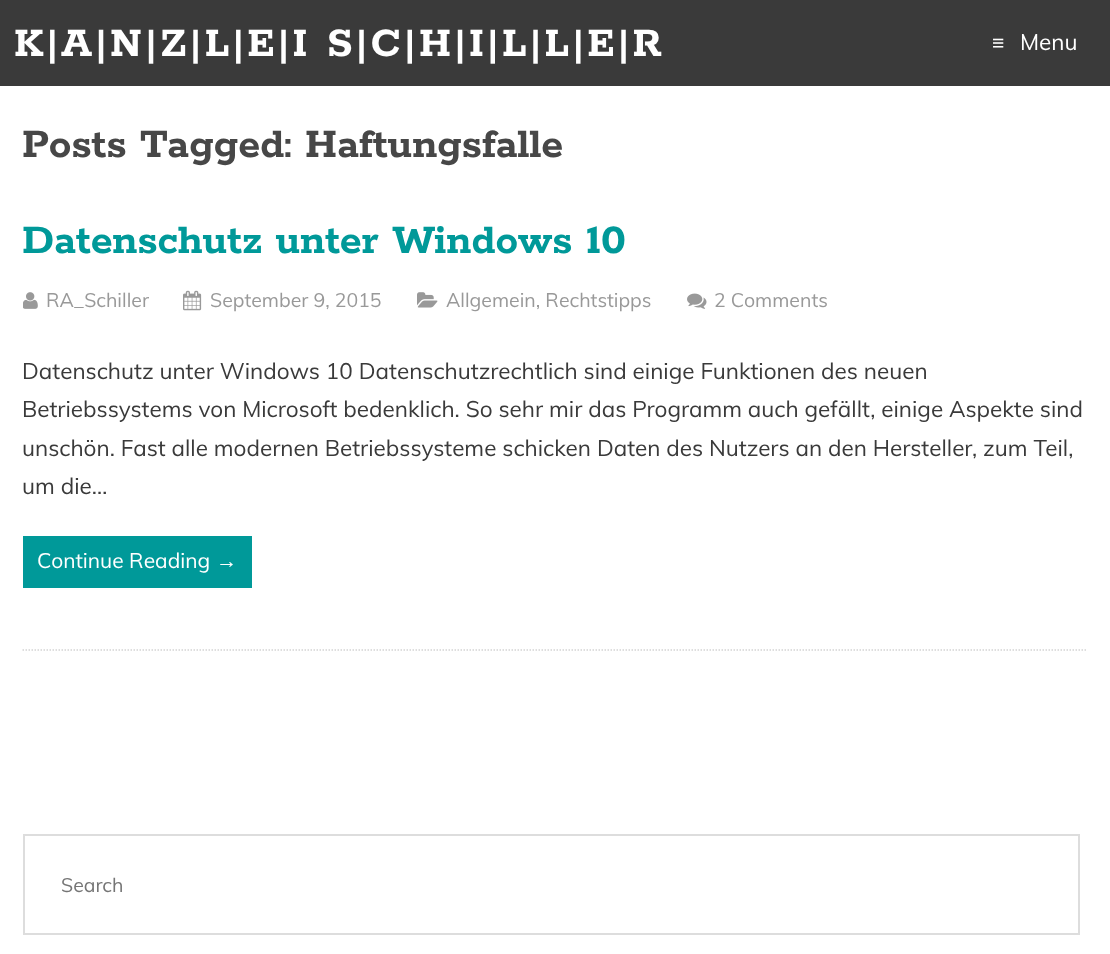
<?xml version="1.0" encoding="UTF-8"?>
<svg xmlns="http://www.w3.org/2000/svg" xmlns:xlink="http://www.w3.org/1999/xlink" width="1110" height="954">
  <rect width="100%" height="100%" fill="#ffffff" />
  <rect width="1110" height="86" fill="#3a3a3a" />
  <path d="M 22.5 650 h 1065" fill="none" stroke="#d4d4d4" stroke-width="1.5" stroke-dasharray="1.5 1.5" />
  <image x="23" y="292" width="15" height="17" xlink:href="image1.png" />
  <image x="183" y="290" width="19" height="21" xlink:href="image2.png" />
  <image x="417" y="292" width="21" height="16" xlink:href="image3.png" />
  <image x="687" y="293" width="20" height="16" xlink:href="image4.png" />
  <rect x="23" y="536" width="229" height="52" fill="#009999" />
  <rect x="24" y="835" width="1055" height="99" fill="none" stroke="#dddddd" stroke-width="2" />
  <text x="14" y="56" style="font-family: Rokkitt; font-size: 45px; font-weight: 600; letter-spacing: 3px; fill: #ffffff">K|A|N|Z|L|E|I S|C|H|I|L|L|E|R</text>
  <text x="992" y="50" style="font-family: Liberation Sans; font-size: 21px; fill: #ffffff">≡</text>
  <text x="1020" y="50" style="font-family: Muli; font-size: 22.5px; fill: #ffffff">Menu</text>
  <text x="22" y="157" style="font-family: Rokkitt; font-size: 45px; font-weight: 600; fill: #474747">Posts Tagged: Haftungsfalle</text>
  <text x="22" y="253" style="font-family: Rokkitt; font-size: 45px; font-weight: 600; fill: #009999">Datenschutz unter Windows 10</text>
  <text x="46" y="307" style="font-family: Muli; font-size: 19.5px; fill: #999999">RA_Schiller</text>
  <text x="210" y="307" style="font-family: Muli; font-size: 19.5px; fill: #999999">September 9, 2015</text>
  <text x="446" y="307" style="font-family: Muli; font-size: 19.5px; fill: #999999">Allgemein, Rechtstipps</text>
  <text x="714" y="307" style="font-family: Muli; font-size: 19.5px; fill: #999999">2 Comments</text>
  <text x="22" y="379" style="font-family: Muli; font-size: 22.5px; fill: #3a3a3a">Datenschutz unter Windows 10 Datenschutzrechtlich sind einige Funktionen des neuen</text>
  <text x="22" y="417" style="font-family: Muli; font-size: 22.5px; fill: #3a3a3a">Betriebssystems von Microsoft bedenklich. So sehr mir das Programm auch gefällt, einige Aspekte sind</text>
  <text x="22" y="456" style="font-family: Muli; font-size: 22.5px; fill: #3a3a3a">unschön. Fast alle modernen Betriebssysteme schicken Daten des Nutzers an den Hersteller, zum Teil,</text>
  <text x="22" y="494" style="font-family: Muli; font-size: 22.5px; fill: #3a3a3a">um die…</text>
  <text x="37" y="568" style="font-family: Muli; font-size: 21px; fill: #ffffff">Continue Reading</text>
  <text x="216" y="568" style="font-family: Liberation Sans; font-size: 21px; fill: #ffffff">→</text>
  <text x="61" y="892" style="font-family: Muli; font-size: 19.5px; fill: #757575">Search</text>
</svg>
